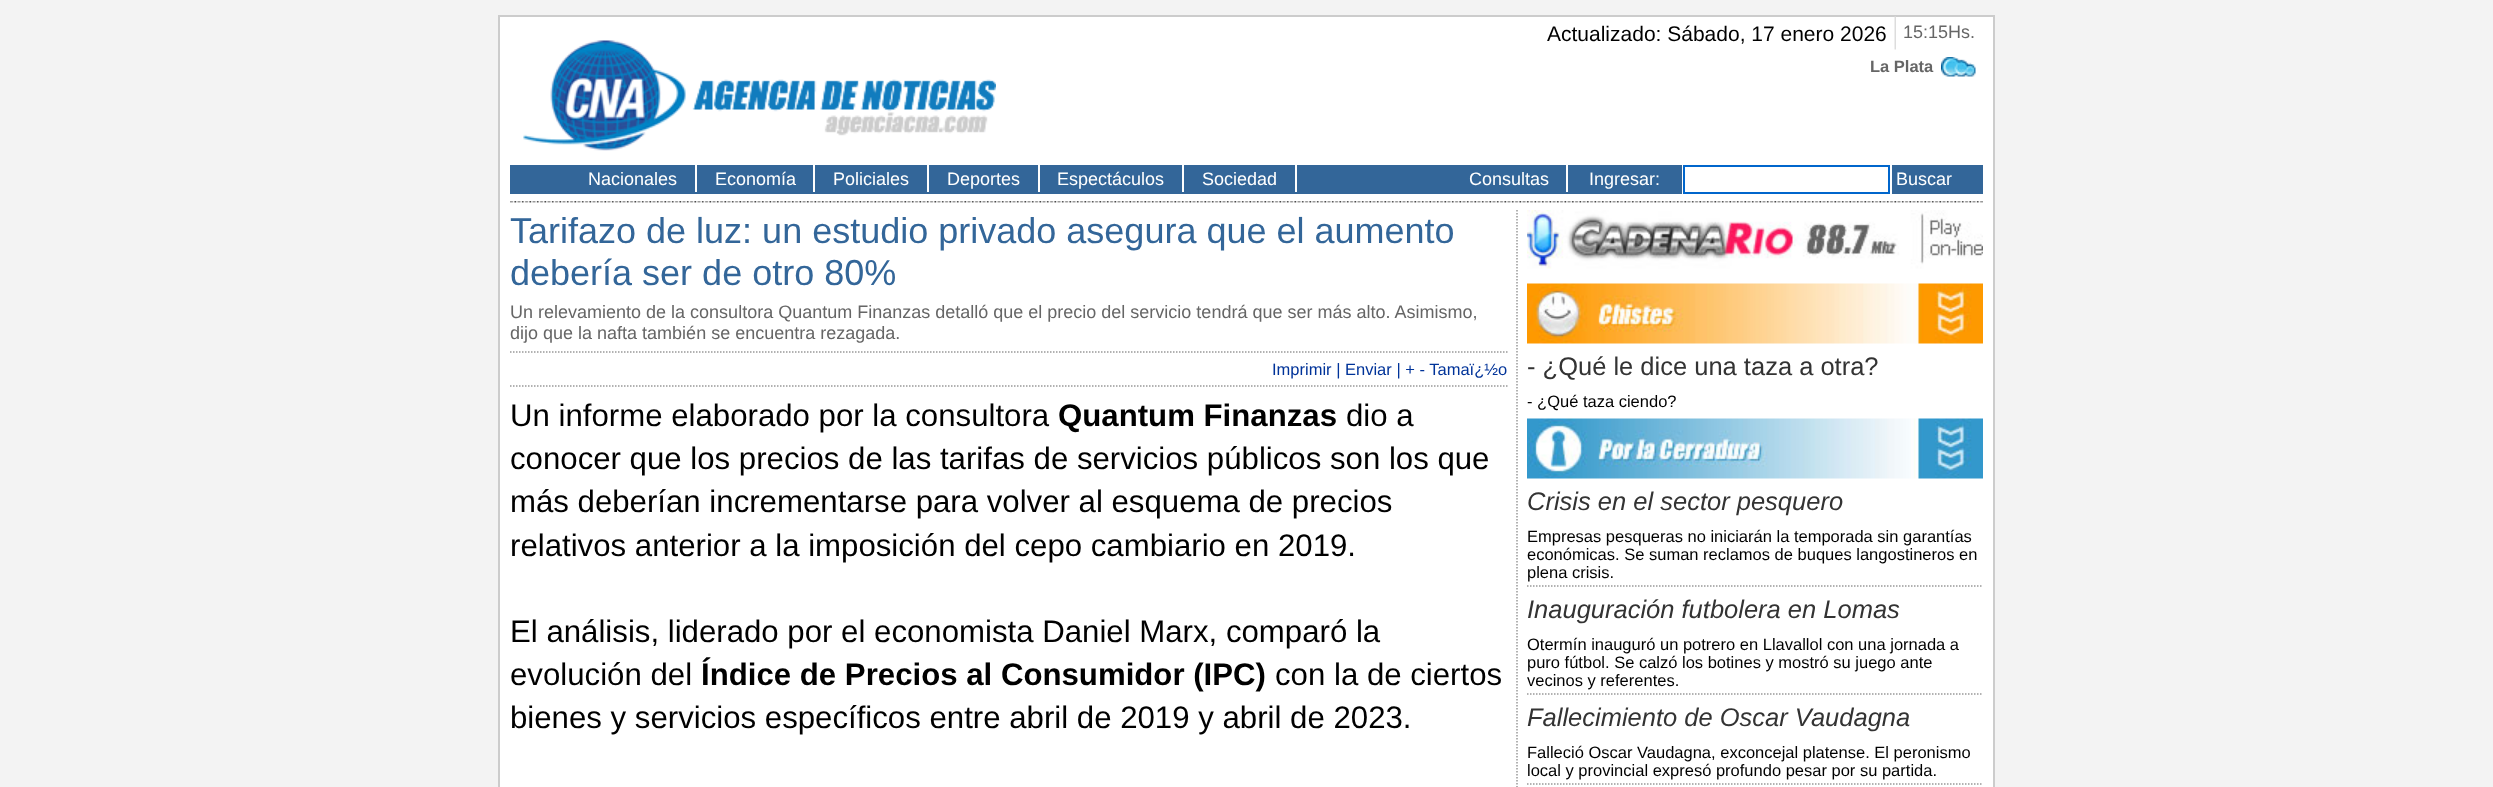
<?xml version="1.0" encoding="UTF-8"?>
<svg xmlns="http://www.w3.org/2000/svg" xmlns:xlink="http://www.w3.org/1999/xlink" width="2493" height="787">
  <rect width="100%" height="100%" fill="#f3f3f3" />
  <rect x="499" y="16" width="1495" height="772" fill="#ffffff" stroke="#cccccc" stroke-width="2" />
  <image x="523" y="40" width="473" height="111" xlink:href="image1.png" />
  <image x="1894" y="16" width="2" height="34" xlink:href="image2.png" />
  <image x="1941" y="57" width="35" height="20" xlink:href="image3.png" />
  <rect x="510" y="165" width="1172" height="29" fill="#336699" />
  <rect x="695" y="165" width="2" height="27" fill="#ffffff" />
  <rect x="813" y="165" width="2" height="27" fill="#ffffff" />
  <rect x="927" y="165" width="2" height="27" fill="#ffffff" />
  <rect x="1038" y="165" width="2" height="27" fill="#ffffff" />
  <rect x="1182" y="165" width="2" height="27" fill="#ffffff" />
  <rect x="1295" y="165" width="2" height="27" fill="#ffffff" />
  <rect x="1566" y="165" width="2" height="27" fill="#ffffff" />
  <rect x="1684" y="166" width="205" height="27" fill="none" stroke="#0066cc" stroke-width="2" />
  <rect x="1892" y="165" width="91" height="29" fill="#336699" />
  <image x="510" y="201" width="1473" height="2" xlink:href="image4.png" />
  <path d="M 1517 210 v 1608" fill="none" stroke="#999999" stroke-width="1.5" stroke-dasharray="1.5 1.5" />
  <path d="M 510 352 h 997.5" fill="none" stroke="#999999" stroke-width="1.5" stroke-dasharray="1.5 1.5" />
  <path d="M 510 386 h 997.5" fill="none" stroke="#999999" stroke-width="1.5" stroke-dasharray="1.5 1.5" />
  <image x="1527" y="210" width="456" height="59" xlink:href="image5.png" />
  <image x="1527" y="283" width="456" height="61" xlink:href="image6.png" />
  <image x="1527" y="418" width="456" height="61" xlink:href="image7.png" />
  <path d="M 1527 586 h 456" fill="none" stroke="#999999" stroke-width="1.5" stroke-dasharray="1.5 1.5" />
  <path d="M 1527 694 h 456" fill="none" stroke="#999999" stroke-width="1.5" stroke-dasharray="1.5 1.5" />
  <path d="M 1527 784 h 456" fill="none" stroke="#999999" stroke-width="1.5" stroke-dasharray="1.5 1.5" />
  <text x="1547" y="41" style="font-family: Liberation Sans; font-size: 21px; fill: #000000">Actualizado: Sábado, 17 enero 2026</text>
  <text x="1903" y="38" style="font-family: Liberation Sans; font-size: 18px; fill: #666666">15:15Hs.</text>
  <text x="1870" y="72" style="font-family: Liberation Sans; font-size: 16.5px; font-weight: bold; fill: #666666">La Plata</text>
  <text x="588" y="185" style="font-family: Liberation Sans; font-size: 18px; fill: #ffffff">Nacionales</text>
  <text x="715" y="185" style="font-family: Liberation Sans; font-size: 18px; fill: #ffffff">Economía</text>
  <text x="833" y="185" style="font-family: Liberation Sans; font-size: 18px; fill: #ffffff">Policiales</text>
  <text x="947" y="185" style="font-family: Liberation Sans; font-size: 18px; fill: #ffffff">Deportes</text>
  <text x="1057" y="185" style="font-family: Liberation Sans; font-size: 18px; fill: #ffffff">Espectáculos</text>
  <text x="1202" y="185" style="font-family: Liberation Sans; font-size: 18px; fill: #ffffff">Sociedad</text>
  <text x="1469" y="185" style="font-family: Liberation Sans; font-size: 18px; fill: #ffffff">Consultas</text>
  <text x="1589" y="185" style="font-family: Liberation Sans; font-size: 18px; fill: #ffffff">Ingresar:</text>
  <text x="1896" y="185" style="font-family: Liberation Sans; font-size: 18px; fill: #ffffff">Buscar</text>
  <text x="510" y="243" style="font-family: Liberation Sans; font-size: 36px; fill: #336699">Tarifazo de luz: un estudio privado asegura que el aumento</text>
  <text x="510" y="285" style="font-family: Liberation Sans; font-size: 36px; fill: #336699">debería ser de otro 80%</text>
  <text x="510" y="318" style="font-family: Liberation Sans; font-size: 18px; fill: #666666">Un relevamiento de la consultora Quantum Finanzas detalló que el precio del servicio tendrá que ser más alto. Asimismo,</text>
  <text x="510" y="339" style="font-family: Liberation Sans; font-size: 18px; fill: #666666">dijo que la nafta también se encuentra rezagada.</text>
  <text x="1272" y="375" style="font-family: Liberation Sans; font-size: 16.5px; fill: #003399">Imprimir | Enviar | + - Tamaï¿½o</text>
  <text x="510" y="426" style="font-family: Liberation Sans; font-size: 31.2px; fill: #000000">Un informe elaborado por la consultora</text>
  <text x="1058" y="426" style="font-family: Liberation Sans; font-size: 31.2px; font-weight: bold; fill: #000000">Quantum Finanzas</text>
  <text x="1346" y="426" style="font-family: Liberation Sans; font-size: 31.2px; fill: #000000">dio a</text>
  <text x="510" y="469" style="font-family: Liberation Sans; font-size: 31.2px; fill: #000000">conocer que los precios de las tarifas de servicios públicos son los que</text>
  <text x="510" y="512" style="font-family: Liberation Sans; font-size: 31.2px; fill: #000000">más deberían incrementarse para volver al esquema de precios</text>
  <text x="510" y="556" style="font-family: Liberation Sans; font-size: 31.2px; fill: #000000">relativos anterior a la imposición del cepo cambiario en 2019.</text>
  <text x="510" y="642" style="font-family: Liberation Sans; font-size: 31.2px; fill: #000000">El análisis, liderado por el economista Daniel Marx, comparó la</text>
  <text x="510" y="685" style="font-family: Liberation Sans; font-size: 31.2px; fill: #000000">evolución del</text>
  <text x="701" y="685" style="font-family: Liberation Sans; font-size: 31.2px; font-weight: bold; fill: #000000">Índice de Precios al Consumidor (IPC)</text>
  <text x="1275" y="685" style="font-family: Liberation Sans; font-size: 31.2px; fill: #000000">con la de ciertos</text>
  <text x="510" y="728" style="font-family: Liberation Sans; font-size: 31.2px; fill: #000000">bienes y servicios específicos entre abril de 2019 y abril de 2023.</text>
  <text x="1527" y="375" style="font-family: Liberation Sans; font-size: 25.5px; fill: #333333">- ¿Qué le dice una taza a otra?</text>
  <text x="1527" y="407" style="font-family: Liberation Sans; font-size: 16.5px; fill: #000000">- ¿Qué taza ciendo?</text>
  <text x="1527" y="510" style="font-family: Liberation Sans; font-size: 25.5px; font-style: italic; fill: #333333">Crisis en el sector pesquero</text>
  <text x="1527" y="542" style="font-family: Liberation Sans; font-size: 16.5px; fill: #000000">Empresas pesqueras no iniciarán la temporada sin garantías</text>
  <text x="1527" y="560" style="font-family: Liberation Sans; font-size: 16.5px; fill: #000000">económicas. Se suman reclamos de buques langostineros en</text>
  <text x="1527" y="578" style="font-family: Liberation Sans; font-size: 16.5px; fill: #000000">plena crisis.</text>
  <text x="1527" y="618" style="font-family: Liberation Sans; font-size: 25.5px; font-style: italic; fill: #333333">Inauguración futbolera en Lomas</text>
  <text x="1527" y="650" style="font-family: Liberation Sans; font-size: 16.5px; fill: #000000">Otermín inauguró un potrero en Llavallol con una jornada a</text>
  <text x="1527" y="668" style="font-family: Liberation Sans; font-size: 16.5px; fill: #000000">puro fútbol. Se calzó los botines y mostró su juego ante</text>
  <text x="1527" y="686" style="font-family: Liberation Sans; font-size: 16.5px; fill: #000000">vecinos y referentes.</text>
  <text x="1527" y="726" style="font-family: Liberation Sans; font-size: 25.5px; font-style: italic; fill: #333333">Fallecimiento de Oscar Vaudagna</text>
  <text x="1527" y="758" style="font-family: Liberation Sans; font-size: 16.5px; fill: #000000">Falleció Oscar Vaudagna, exconcejal platense. El peronismo</text>
  <text x="1527" y="776" style="font-family: Liberation Sans; font-size: 16.5px; fill: #000000">local y provincial expresó profundo pesar por su partida.</text>
</svg>
